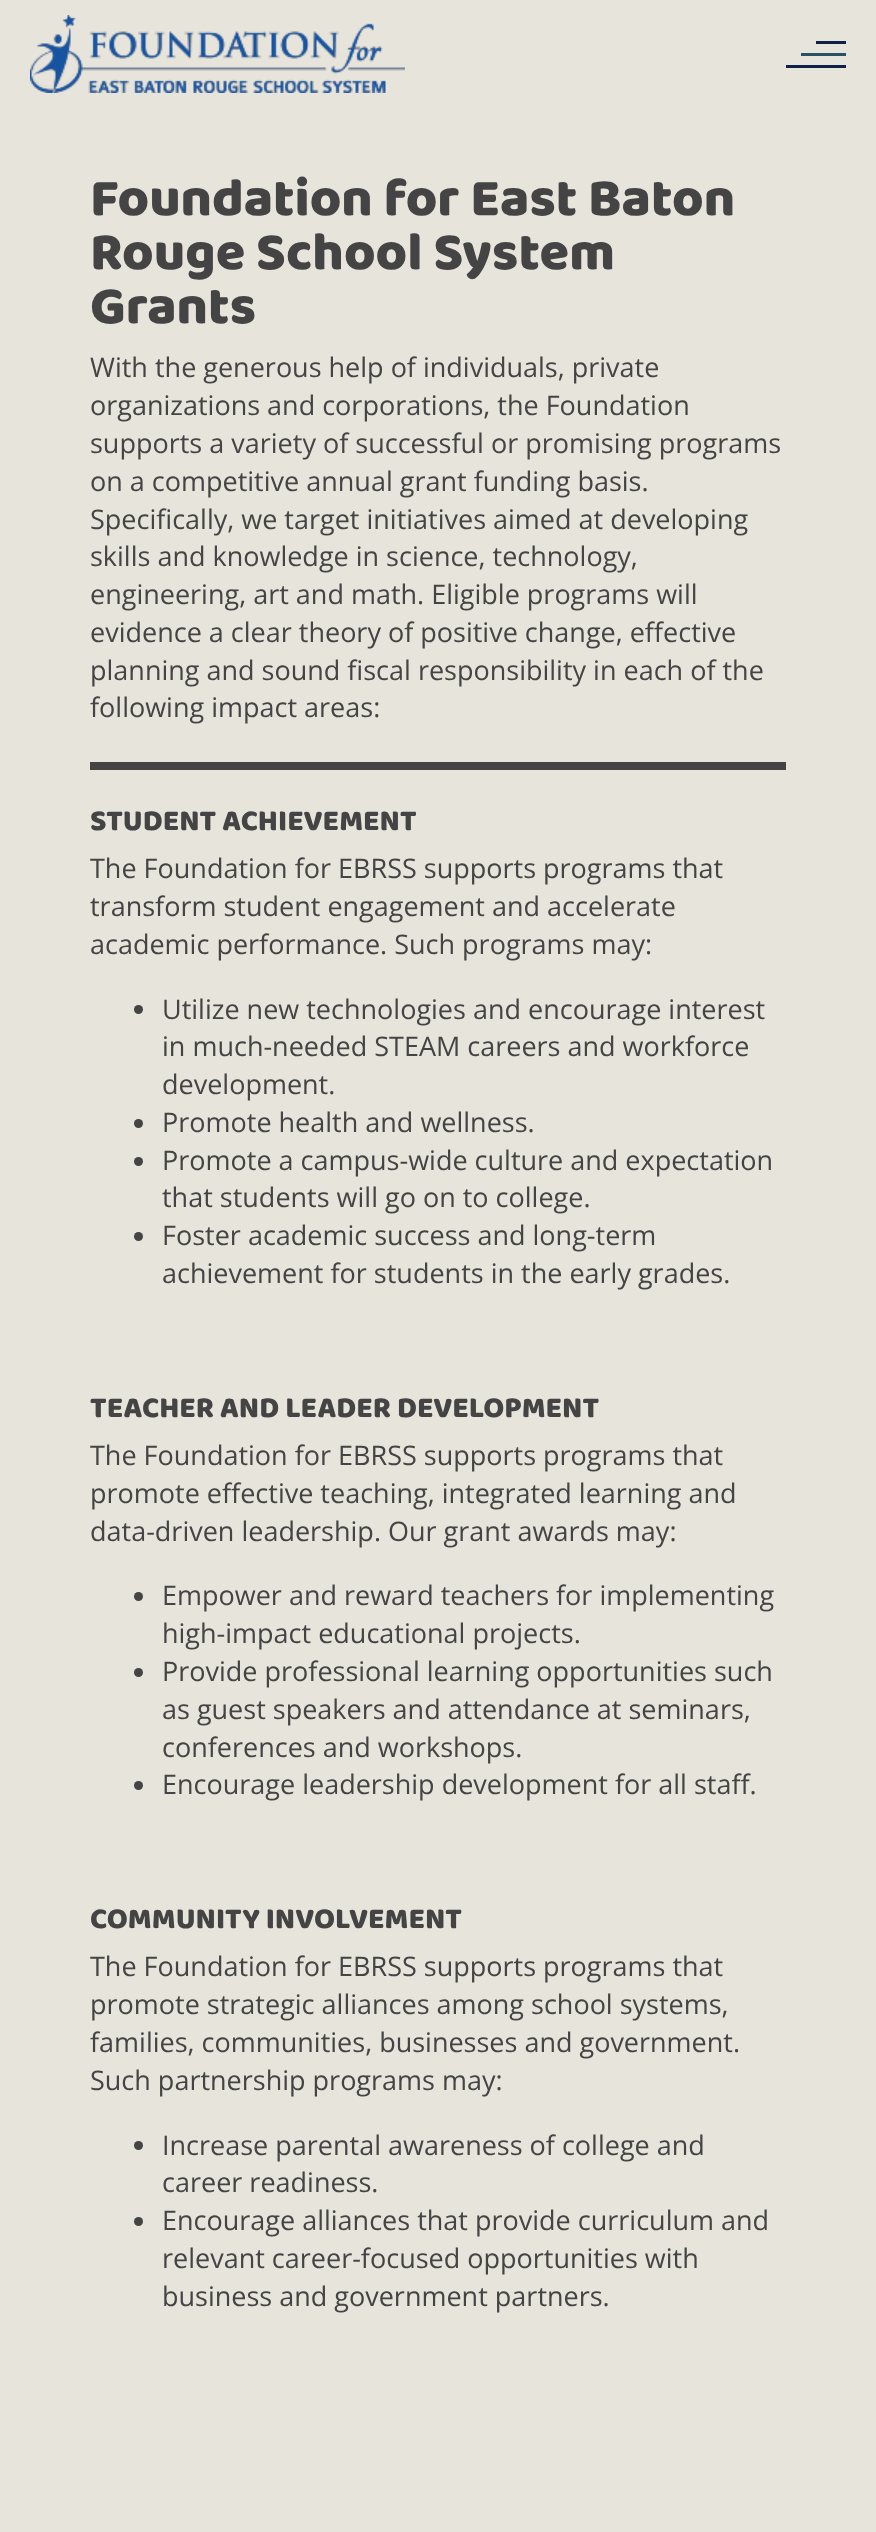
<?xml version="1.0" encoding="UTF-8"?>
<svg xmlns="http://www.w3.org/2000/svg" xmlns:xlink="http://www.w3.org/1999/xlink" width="876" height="2532">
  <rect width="100%" height="100%" fill="#e7e4db" />
  <image x="30" y="15" width="375" height="78" xlink:href="image1.png" />
  <rect x="801" y="53" width="45" height="3" fill="#295166" />
  <rect x="816" y="41" width="30" height="3" fill="#0d2149" />
  <rect x="786" y="65" width="60" height="3" fill="#0d2149" />
  <rect x="90" y="762" width="696" height="8" fill="#444444" />
  <circle cx="138.5" cy="1009.5" r="4.5" fill="#444444" />
  <circle cx="138.5" cy="1123.5" r="4.5" fill="#444444" />
  <circle cx="138.5" cy="1161.5" r="4.5" fill="#444444" />
  <circle cx="138.5" cy="1236.5" r="4.5" fill="#444444" />
  <circle cx="138.5" cy="1596.5" r="4.5" fill="#444444" />
  <circle cx="138.5" cy="1672.5" r="4.5" fill="#444444" />
  <circle cx="138.5" cy="1785.5" r="4.5" fill="#444444" />
  <circle cx="138.5" cy="2145.5" r="4.5" fill="#444444" />
  <circle cx="138.5" cy="2221.5" r="4.5" fill="#444444" />
  <text x="90" y="215" style="font-family: 'Baloo 2'; font-size: 54px; font-weight: 800; fill: #444444">Foundation for East Baton</text>
  <text x="90" y="269" style="font-family: 'Baloo 2'; font-size: 54px; font-weight: 800; fill: #444444">Rouge School System</text>
  <text x="90" y="323" style="font-family: 'Baloo 2'; font-size: 54px; font-weight: 800; fill: #444444">Grants</text>
  <text x="90" y="377" style="font-family: Open Sans; font-size: 27px; fill: #444444">With the generous help of individuals, private</text>
  <text x="90" y="415" style="font-family: Open Sans; font-size: 27px; fill: #444444">organizations and corporations, the Foundation</text>
  <text x="90" y="453" style="font-family: Open Sans; font-size: 27px; fill: #444444">supports a variety of successful or promising programs</text>
  <text x="90" y="491" style="font-family: Open Sans; font-size: 27px; fill: #444444">on a competitive annual grant funding basis.</text>
  <text x="90" y="529" style="font-family: Open Sans; font-size: 27px; fill: #444444">Specifically, we target initiatives aimed at developing</text>
  <text x="90" y="566" style="font-family: Open Sans; font-size: 27px; fill: #444444">skills and knowledge in science, technology,</text>
  <text x="90" y="604" style="font-family: Open Sans; font-size: 27px; fill: #444444">engineering, art and math. Eligible programs will</text>
  <text x="90" y="642" style="font-family: Open Sans; font-size: 27px; fill: #444444">evidence a clear theory of positive change, effective</text>
  <text x="90" y="680" style="font-family: Open Sans; font-size: 27px; fill: #444444">planning and sound fiscal responsibility in each of the</text>
  <text x="90" y="717" style="font-family: Open Sans; font-size: 27px; fill: #444444">following impact areas:</text>
  <text x="90" y="830" style="font-family: 'Baloo 2'; font-size: 30px; font-weight: 800; fill: #444444">STUDENT ACHIEVEMENT</text>
  <text x="90" y="878" style="font-family: Open Sans; font-size: 27px; fill: #444444">The Foundation for EBRSS supports programs that</text>
  <text x="90" y="916" style="font-family: Open Sans; font-size: 27px; fill: #444444">transform student engagement and accelerate</text>
  <text x="90" y="954" style="font-family: Open Sans; font-size: 27px; fill: #444444">academic performance. Such programs may:</text>
  <text x="162" y="1019" style="font-family: Open Sans; font-size: 27px; fill: #444444">Utilize new technologies and encourage interest</text>
  <text x="162" y="1056" style="font-family: Open Sans; font-size: 27px; fill: #444444">in much-needed STEAM careers and workforce</text>
  <text x="162" y="1094" style="font-family: Open Sans; font-size: 27px; fill: #444444">development.</text>
  <text x="162" y="1132" style="font-family: Open Sans; font-size: 27px; fill: #444444">Promote health and wellness.</text>
  <text x="162" y="1170" style="font-family: Open Sans; font-size: 27px; fill: #444444">Promote a campus-wide culture and expectation</text>
  <text x="162" y="1207" style="font-family: Open Sans; font-size: 27px; fill: #444444">that students will go on to college.</text>
  <text x="162" y="1245" style="font-family: Open Sans; font-size: 27px; fill: #444444">Foster academic success and long-term</text>
  <text x="162" y="1283" style="font-family: Open Sans; font-size: 27px; fill: #444444">achievement for students in the early grades.</text>
  <text x="90" y="1417" style="font-family: 'Baloo 2'; font-size: 30px; font-weight: 800; fill: #444444">TEACHER AND LEADER DEVELOPMENT</text>
  <text x="90" y="1465" style="font-family: Open Sans; font-size: 27px; fill: #444444">The Foundation for EBRSS supports programs that</text>
  <text x="90" y="1503" style="font-family: Open Sans; font-size: 27px; fill: #444444">promote effective teaching, integrated learning and</text>
  <text x="90" y="1541" style="font-family: Open Sans; font-size: 27px; fill: #444444">data-driven leadership. Our grant awards may:</text>
  <text x="162" y="1605" style="font-family: Open Sans; font-size: 27px; fill: #444444">Empower and reward teachers for implementing</text>
  <text x="162" y="1643" style="font-family: Open Sans; font-size: 27px; fill: #444444">high-impact educational projects.</text>
  <text x="162" y="1681" style="font-family: Open Sans; font-size: 27px; fill: #444444">Provide professional learning opportunities such</text>
  <text x="162" y="1719" style="font-family: Open Sans; font-size: 27px; fill: #444444">as guest speakers and attendance at seminars,</text>
  <text x="162" y="1757" style="font-family: Open Sans; font-size: 27px; fill: #444444">conferences and workshops.</text>
  <text x="162" y="1794" style="font-family: Open Sans; font-size: 27px; fill: #444444">Encourage leadership development for all staff.</text>
  <text x="90" y="1928" style="font-family: 'Baloo 2'; font-size: 30px; font-weight: 800; fill: #444444">COMMUNITY INVOLVEMENT</text>
  <text x="90" y="1976" style="font-family: Open Sans; font-size: 27px; fill: #444444">The Foundation for EBRSS supports programs that</text>
  <text x="90" y="2014" style="font-family: Open Sans; font-size: 27px; fill: #444444">promote strategic alliances among school systems,</text>
  <text x="90" y="2052" style="font-family: Open Sans; font-size: 27px; fill: #444444">families, communities, businesses and government.</text>
  <text x="90" y="2090" style="font-family: Open Sans; font-size: 27px; fill: #444444">Such partnership programs may:</text>
  <text x="162" y="2155" style="font-family: Open Sans; font-size: 27px; fill: #444444">Increase parental awareness of college and</text>
  <text x="162" y="2192" style="font-family: Open Sans; font-size: 27px; fill: #444444">career readiness.</text>
  <text x="162" y="2230" style="font-family: Open Sans; font-size: 27px; fill: #444444">Encourage alliances that provide curriculum and</text>
  <text x="162" y="2268" style="font-family: Open Sans; font-size: 27px; fill: #444444">relevant career-focused opportunities with</text>
  <text x="162" y="2306" style="font-family: Open Sans; font-size: 27px; fill: #444444">business and government partners.</text>
</svg>
